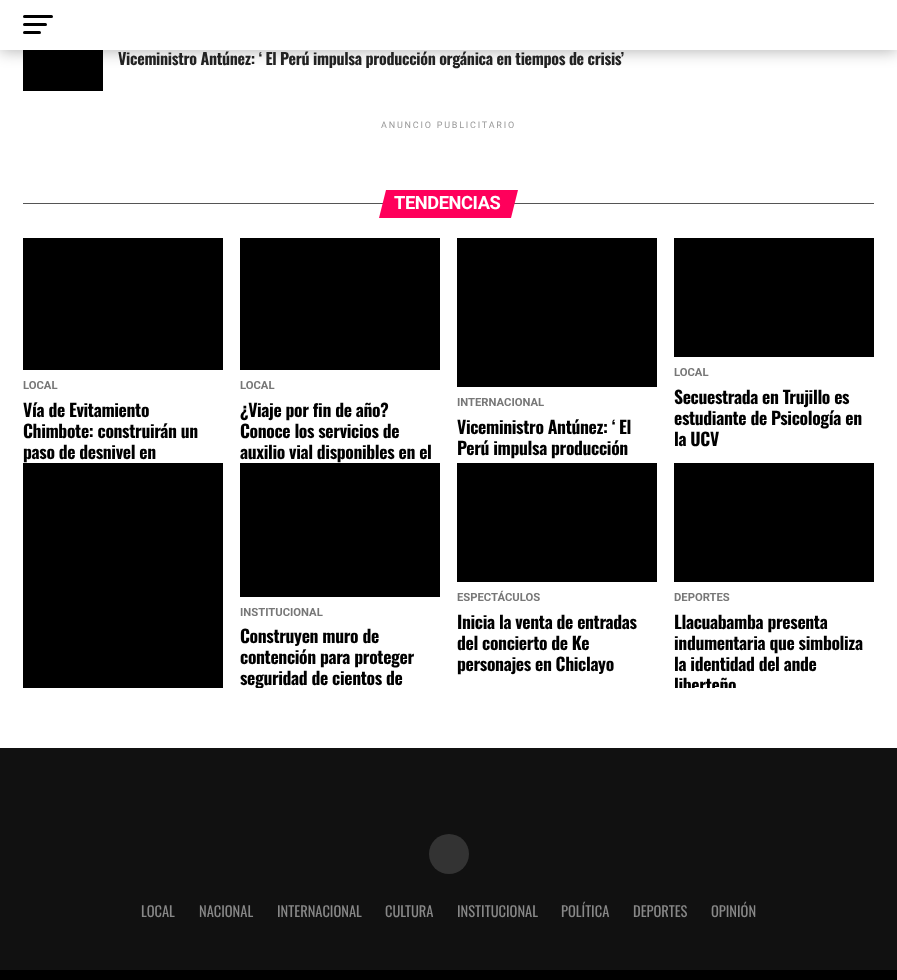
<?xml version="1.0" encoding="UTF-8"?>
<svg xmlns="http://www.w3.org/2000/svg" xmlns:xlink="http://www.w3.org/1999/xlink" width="897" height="980">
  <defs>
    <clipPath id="clip1"><rect x="240" y="463" width="200" height="225" /></clipPath>
    <clipPath id="clip2"><rect x="674" y="463" width="200" height="225" /></clipPath>
  </defs>
  <rect width="100%" height="100%" fill="#ffffff" />
  <rect x="23" y="50" width="80" height="41" fill="#000000" />
  <rect y="1" width="897" height="50" fill="#000000" fill-opacity="0.3" filter="blur(8px)" />
  <rect width="897" height="50" fill="#ffffff" />
  <rect x="23" y="15" width="30" height="3" rx="1.5" fill="#000000" />
  <rect x="23" y="23" width="24" height="3" rx="1.5" fill="#000000" />
  <rect x="23" y="31" width="18" height="3" rx="1.5" fill="#000000" />
  <rect x="23" y="203" width="851" height="1" fill="#555555" />
  <path d="M 386 190 h 132 l -7 28 h -132 z" fill="#ff005b" />
  <rect x="23" y="238" width="200" height="132" fill="#000000" />
  <rect x="240" y="238" width="200" height="132" fill="#000000" />
  <rect x="457" y="238" width="200" height="149" fill="#000000" />
  <rect x="674" y="238" width="200" height="119" fill="#000000" />
  <rect x="23" y="463" width="200" height="225" fill="#000000" />
  <rect x="240" y="463" width="200" height="134" fill="#000000" />
  <rect x="457" y="463" width="200" height="119" fill="#000000" />
  <rect x="674" y="463" width="200" height="119" fill="#000000" />
  <rect y="748" width="897" height="222" fill="#111111" />
  <circle cx="449" cy="854" r="20" fill="#333333" />
  <rect y="970" width="897" height="10" fill="#000000" />
  <text x="118" y="65" style="font-family: Oswald; font-size: 16px; font-weight: bold; letter-spacing: -0.32px; fill: #222222">Viceministro Antúnez: ‘ El Perú impulsa producción orgánica en tiempos de crisis’</text>
  <text x="381" y="128" style="font-family: Roboto; font-size: 9px; letter-spacing: 1.8px; fill: #999999">ANUNCIO PUBLICITARIO</text>
  <text x="394" y="209" style="font-family: Roboto; font-size: 18.25px; font-weight: bold; letter-spacing: -0.4px; fill: #ffffff">TENDENCIAS</text>
  <text x="23" y="389" style="font-family: Roboto; font-size: 11.25px; font-weight: bold; fill: #777777">LOCAL</text>
  <text x="23" y="417" style="font-family: Oswald; font-size: 17.6px; font-weight: bold; letter-spacing: -0.35px; fill: #000000">Vía de Evitamiento</text>
  <text x="23" y="438" style="font-family: Oswald; font-size: 17.6px; font-weight: bold; letter-spacing: -0.35px; fill: #000000">Chimbote: construirán un</text>
  <text x="23" y="459" style="font-family: Oswald; font-size: 17.6px; font-weight: bold; letter-spacing: -0.35px; fill: #000000">paso de desnivel en</text>
  <text x="240" y="389" style="font-family: Roboto; font-size: 11.25px; font-weight: bold; fill: #777777">LOCAL</text>
  <text x="240" y="417" style="font-family: Oswald; font-size: 17.6px; font-weight: bold; letter-spacing: -0.35px; fill: #000000">¿Viaje por fin de año?</text>
  <text x="240" y="438" style="font-family: Oswald; font-size: 17.6px; font-weight: bold; letter-spacing: -0.35px; fill: #000000">Conoce los servicios de</text>
  <text x="240" y="459" style="font-family: Oswald; font-size: 17.6px; font-weight: bold; letter-spacing: -0.35px; fill: #000000">auxilio vial disponibles en el</text>
  <text x="457" y="406" style="font-family: Roboto; font-size: 11.25px; font-weight: bold; fill: #777777">INTERNACIONAL</text>
  <text x="457" y="434" style="font-family: Oswald; font-size: 17.6px; font-weight: bold; letter-spacing: -0.35px; fill: #000000">Viceministro Antúnez: ‘ El</text>
  <text x="457" y="455" style="font-family: Oswald; font-size: 17.6px; font-weight: bold; letter-spacing: -0.35px; fill: #000000">Perú impulsa producción</text>
  <text x="674" y="376" style="font-family: Roboto; font-size: 11.25px; font-weight: bold; fill: #777777">LOCAL</text>
  <text x="674" y="404" style="font-family: Oswald; font-size: 17.6px; font-weight: bold; letter-spacing: -0.35px; fill: #000000">Secuestrada en Trujillo es</text>
  <text x="674" y="425" style="font-family: Oswald; font-size: 17.6px; font-weight: bold; letter-spacing: -0.35px; fill: #000000">estudiante de Psicología en</text>
  <text x="674" y="446" style="font-family: Oswald; font-size: 17.6px; font-weight: bold; letter-spacing: -0.35px; fill: #000000">la UCV</text>
  <text x="240" y="616" style="font-family: Roboto; font-size: 11.25px; font-weight: bold; fill: #777777">INSTITUCIONAL</text>
  <text x="240" y="643" style="font-family: Oswald; font-size: 17.6px; font-weight: bold; letter-spacing: -0.35px; fill: #000000">Construyen muro de</text>
  <text x="240" y="664" style="font-family: Oswald; font-size: 17.6px; font-weight: bold; letter-spacing: -0.35px; fill: #000000">contención para proteger</text>
  <g clip-path="url(#clip1)">
    <text x="240" y="685" style="font-family: Oswald; font-size: 17.6px; font-weight: bold; letter-spacing: -0.35px; fill: #000000">seguridad de cientos de</text>
  </g>
  <text x="457" y="601" style="font-family: Roboto; font-size: 11.25px; font-weight: bold; fill: #777777">ESPECTÁCULOS</text>
  <text x="457" y="629" style="font-family: Oswald; font-size: 17.6px; font-weight: bold; letter-spacing: -0.35px; fill: #000000">Inicia la venta de entradas</text>
  <text x="457" y="650" style="font-family: Oswald; font-size: 17.6px; font-weight: bold; letter-spacing: -0.35px; fill: #000000">del concierto de Ke</text>
  <text x="457" y="671" style="font-family: Oswald; font-size: 17.6px; font-weight: bold; letter-spacing: -0.35px; fill: #000000">personajes en Chiclayo</text>
  <text x="674" y="601" style="font-family: Roboto; font-size: 11.25px; font-weight: bold; fill: #777777">DEPORTES</text>
  <text x="674" y="629" style="font-family: Oswald; font-size: 17.6px; font-weight: bold; letter-spacing: -0.35px; fill: #000000">Llacuabamba presenta</text>
  <text x="674" y="650" style="font-family: Oswald; font-size: 17.6px; font-weight: bold; letter-spacing: -0.35px; fill: #000000">indumentaria que simboliza</text>
  <text x="674" y="671" style="font-family: Oswald; font-size: 17.6px; font-weight: bold; letter-spacing: -0.35px; fill: #000000">la identidad del ande</text>
  <g clip-path="url(#clip2)">
    <text x="674" y="692" style="font-family: Oswald; font-size: 17.6px; font-weight: bold; letter-spacing: -0.35px; fill: #000000">liberteño</text>
  </g>
  <text x="141" y="917" style="font-family: Oswald; font-size: 14.5px; fill: #888888">LOCAL</text>
  <text x="199" y="917" style="font-family: Oswald; font-size: 14.5px; fill: #888888">NACIONAL</text>
  <text x="277" y="917" style="font-family: Oswald; font-size: 14.5px; fill: #888888">INTERNACIONAL</text>
  <text x="385" y="917" style="font-family: Oswald; font-size: 14.5px; fill: #888888">CULTURA</text>
  <text x="457" y="917" style="font-family: Oswald; font-size: 14.5px; fill: #888888">INSTITUCIONAL</text>
  <text x="561" y="917" style="font-family: Oswald; font-size: 14.5px; fill: #888888">POLÍTICA</text>
  <text x="633" y="917" style="font-family: Oswald; font-size: 14.5px; fill: #888888">DEPORTES</text>
  <text x="711" y="917" style="font-family: Oswald; font-size: 14.5px; fill: #888888">OPINIÓN</text>
</svg>
